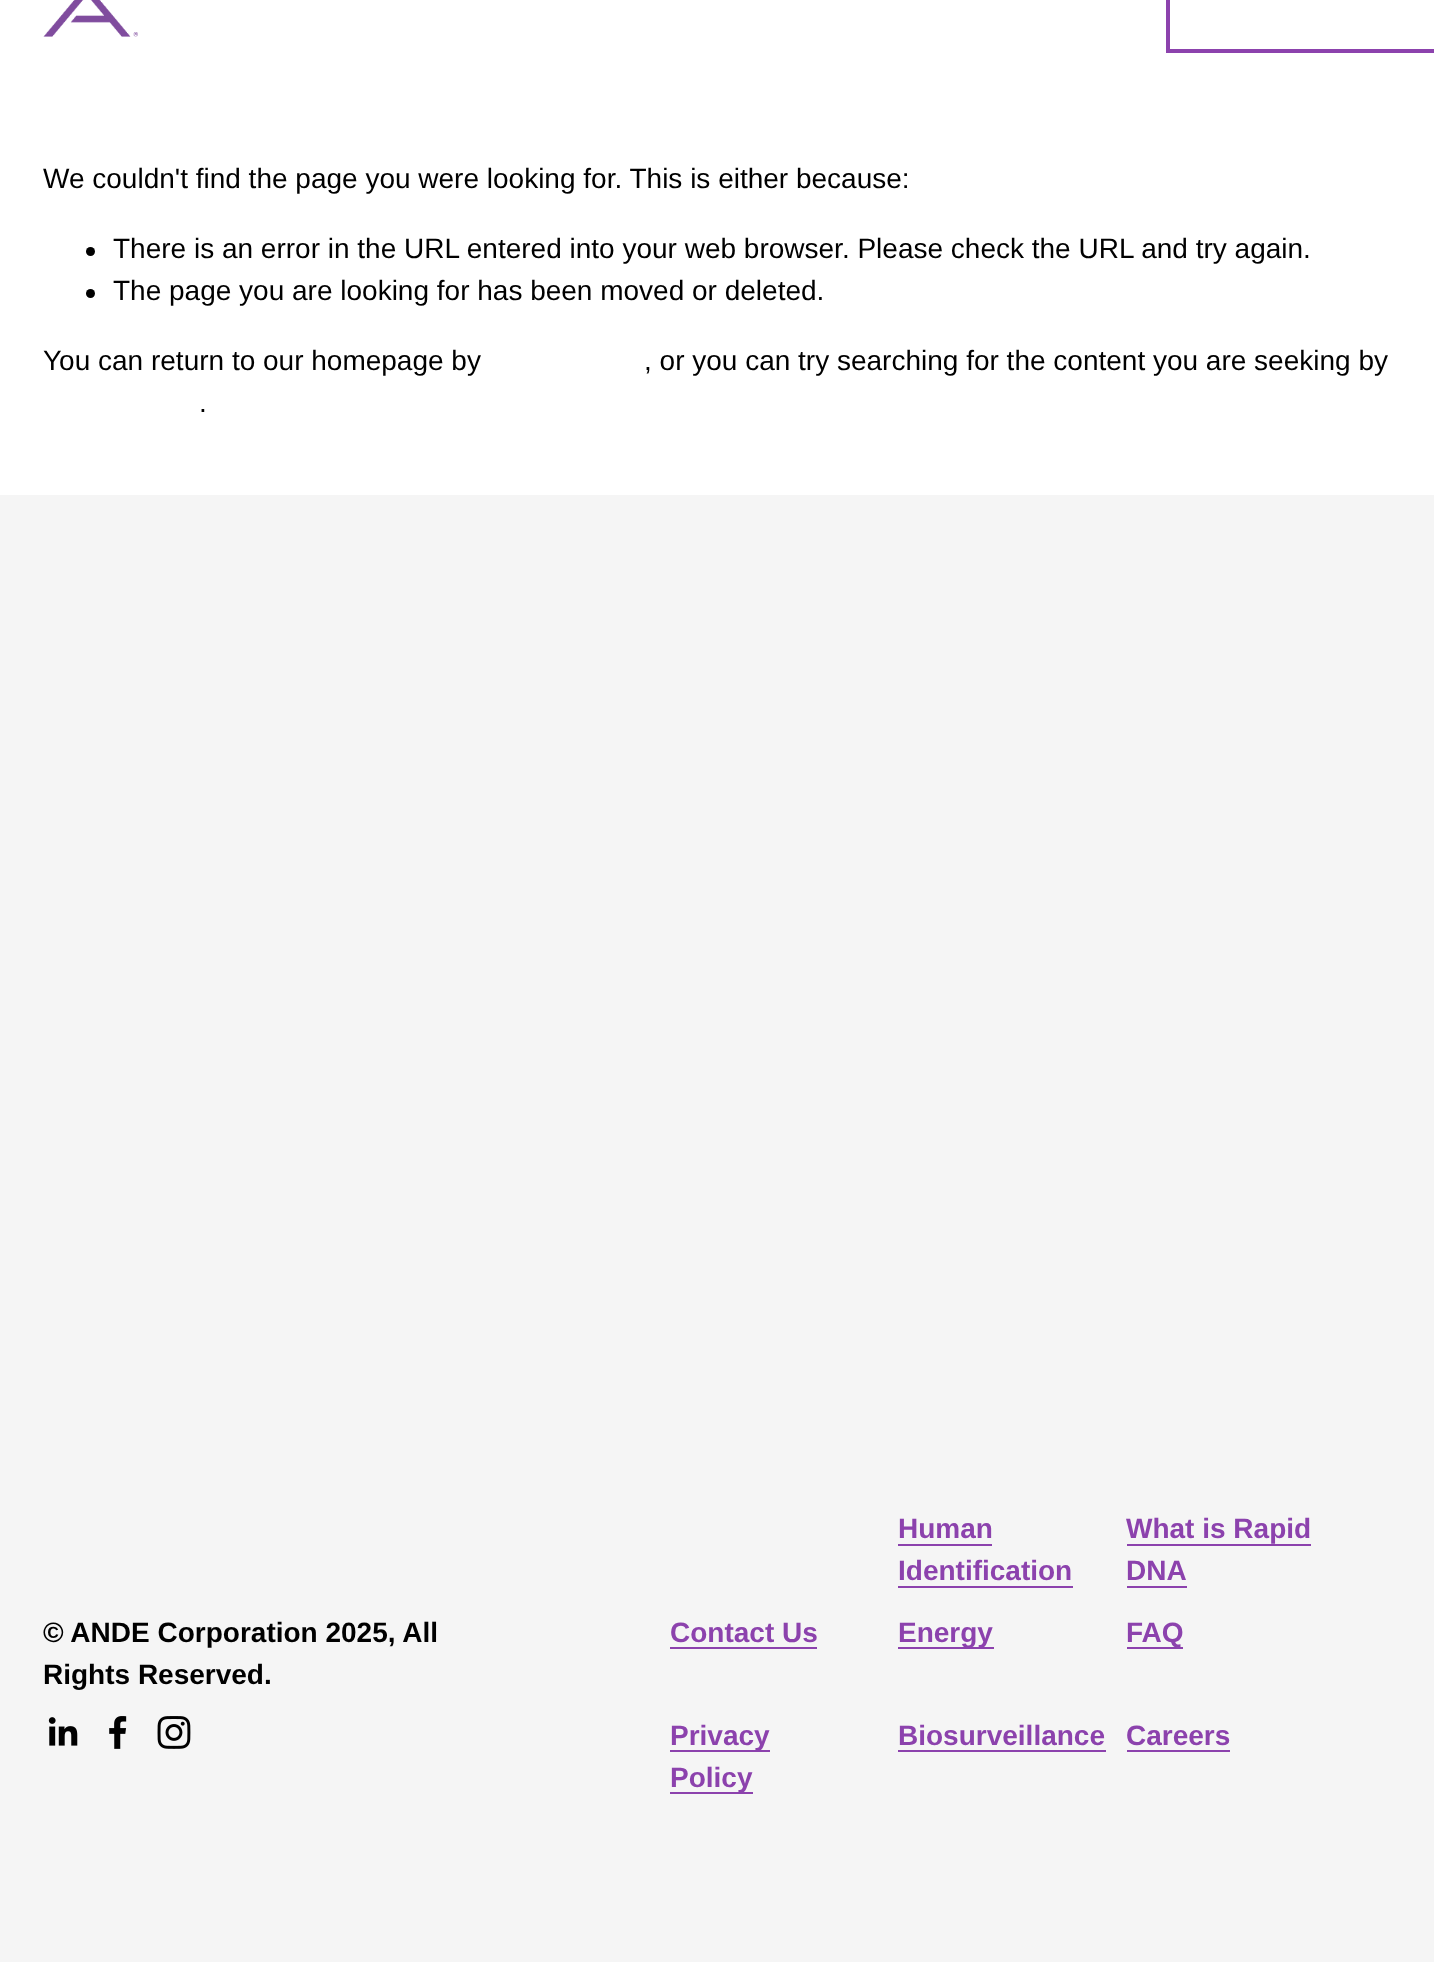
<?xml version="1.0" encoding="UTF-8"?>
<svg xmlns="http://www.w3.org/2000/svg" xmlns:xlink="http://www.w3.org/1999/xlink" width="1434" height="1962">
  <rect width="100%" height="100%" fill="#ffffff" />
  <image x="43" y="0" width="95" height="37" xlink:href="image1.png" />
  <rect x="1168" y="-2" width="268" height="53" fill="none" stroke="#8c42ad" stroke-width="4" />
  <circle cx="90.5" cy="251.5" r="4.5" fill="#000000" />
  <circle cx="90.5" cy="293.5" r="4.5" fill="#000000" />
  <rect y="495" width="1434" height="1467" fill="#f5f5f5" />
  <rect x="898" y="1544" width="94" height="2" fill="#8c42ad" />
  <rect x="898" y="1586" width="175" height="2" fill="#8c42ad" />
  <rect x="1127" y="1544" width="184" height="2" fill="#8c42ad" />
  <rect x="1127" y="1586" width="60" height="2" fill="#8c42ad" />
  <rect x="670" y="1647" width="147" height="2" fill="#8c42ad" />
  <rect x="898" y="1647" width="96" height="2" fill="#8c42ad" />
  <rect x="1127" y="1647" width="56" height="2" fill="#8c42ad" />
  <image x="48" y="1717" width="30" height="29" xlink:href="image2.png" />
  <image x="109" y="1716" width="18" height="33" xlink:href="image3.png" />
  <image x="157" y="1716" width="34" height="33" xlink:href="image4.png" />
  <rect x="670" y="1750" width="100" height="2" fill="#8c42ad" />
  <rect x="670" y="1792" width="83" height="2" fill="#8c42ad" />
  <rect x="898" y="1750" width="208" height="2" fill="#8c42ad" />
  <rect x="1127" y="1750" width="103" height="2" fill="#8c42ad" />
  <text x="43" y="188" style="font-family: Arimo; font-size: 28px; fill: #000000">We couldn't find the page you were looking for. This is either because:</text>
  <text x="113" y="258" style="font-family: Arimo; font-size: 28px; fill: #000000">There is an error in the URL entered into your web browser. Please check the URL and try again.</text>
  <text x="113" y="300" style="font-family: Arimo; font-size: 28px; fill: #000000">The page you are looking for has been moved or deleted.</text>
  <text x="43" y="370" style="font-family: Arimo; font-size: 28px; fill: #000000">You can return to our homepage by</text>
  <text x="644" y="370" style="font-family: Arimo; font-size: 28px; fill: #000000">, or you can try searching for the content you are seeking by</text>
  <text x="199" y="412" style="font-family: Arimo; font-size: 28px; fill: #000000">.</text>
  <text x="898" y="1538" style="font-family: Arimo; font-size: 28px; font-weight: bold; fill: #8c42ad">Human</text>
  <text x="898" y="1580" style="font-family: Arimo; font-size: 28px; font-weight: bold; fill: #8c42ad">Identification</text>
  <text x="1126" y="1538" style="font-family: Arimo; font-size: 28px; font-weight: bold; fill: #8c42ad">What is Rapid</text>
  <text x="1126" y="1580" style="font-family: Arimo; font-size: 28px; font-weight: bold; fill: #8c42ad">DNA</text>
  <text x="43" y="1642" style="font-family: Arimo; font-size: 28px; font-weight: bold; fill: #000000">© ANDE Corporation 2025, All</text>
  <text x="43" y="1684" style="font-family: Arimo; font-size: 28px; font-weight: bold; fill: #000000">Rights Reserved.</text>
  <text x="670" y="1642" style="font-family: Arimo; font-size: 28px; font-weight: bold; fill: #8c42ad">Contact Us</text>
  <text x="898" y="1642" style="font-family: Arimo; font-size: 28px; font-weight: bold; fill: #8c42ad">Energy</text>
  <text x="1126" y="1642" style="font-family: Arimo; font-size: 28px; font-weight: bold; fill: #8c42ad">FAQ</text>
  <text x="670" y="1745" style="font-family: Arimo; font-size: 28px; font-weight: bold; fill: #8c42ad">Privacy</text>
  <text x="670" y="1787" style="font-family: Arimo; font-size: 28px; font-weight: bold; fill: #8c42ad">Policy</text>
  <text x="898" y="1745" style="font-family: Arimo; font-size: 28px; font-weight: bold; fill: #8c42ad">Biosurveillance</text>
  <text x="1126" y="1745" style="font-family: Arimo; font-size: 28px; font-weight: bold; fill: #8c42ad">Careers</text>
</svg>
